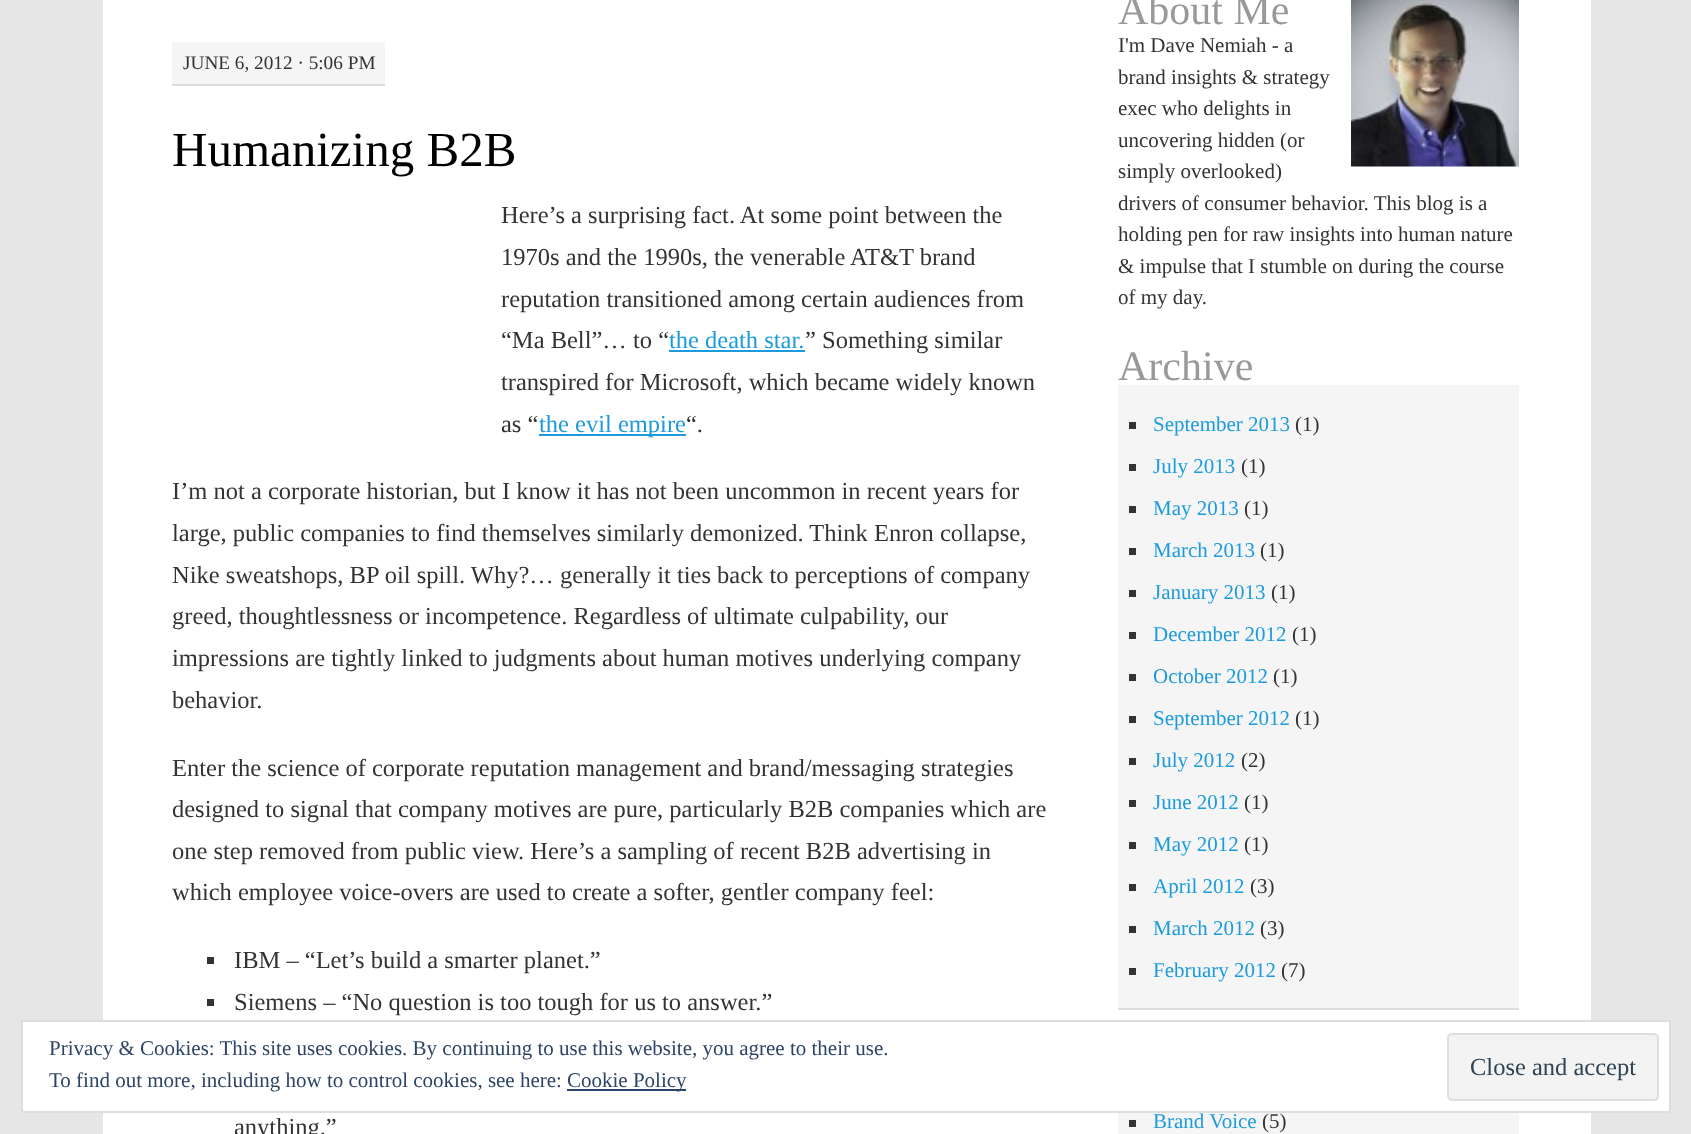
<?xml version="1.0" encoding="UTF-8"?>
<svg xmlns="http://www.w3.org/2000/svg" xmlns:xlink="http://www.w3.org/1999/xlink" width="1691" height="1134">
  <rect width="100%" height="100%" fill="#e6e6e6" />
  <rect x="103" width="1488" height="1134" fill="#ffffff" />
  <rect x="172" y="42" width="213" height="42" fill="#f5f5f5" />
  <rect x="172" y="84" width="213" height="2" fill="#dddddd" />
  <rect x="669" y="350" width="136" height="2" fill="#1c9bdc" />
  <rect x="539" y="434" width="147" height="2" fill="#1c9bdc" />
  <rect x="207" y="957" width="7" height="7" fill="#333333" />
  <rect x="207" y="999" width="7" height="7" fill="#333333" />
  <image x="1351" y="0" width="168" height="167" xlink:href="image1.png" />
  <rect x="1118" y="385" width="401" height="623" fill="#f5f5f5" />
  <rect x="1118" y="1008" width="401" height="2" fill="#dddddd" />
  <rect x="1129" y="422" width="7" height="7" fill="#333333" />
  <rect x="1129" y="464" width="7" height="7" fill="#333333" />
  <rect x="1129" y="506" width="7" height="7" fill="#333333" />
  <rect x="1129" y="548" width="7" height="7" fill="#333333" />
  <rect x="1129" y="590" width="7" height="7" fill="#333333" />
  <rect x="1129" y="632" width="7" height="7" fill="#333333" />
  <rect x="1129" y="674" width="7" height="7" fill="#333333" />
  <rect x="1129" y="716" width="7" height="7" fill="#333333" />
  <rect x="1129" y="758" width="7" height="7" fill="#333333" />
  <rect x="1129" y="800" width="7" height="7" fill="#333333" />
  <rect x="1129" y="842" width="7" height="7" fill="#333333" />
  <rect x="1129" y="884" width="7" height="7" fill="#333333" />
  <rect x="1129" y="926" width="7" height="7" fill="#333333" />
  <rect x="1129" y="968" width="7" height="7" fill="#333333" />
  <rect x="1118" y="1113" width="401" height="21" fill="#f5f5f5" />
  <rect x="1129" y="1120" width="7" height="7" fill="#333333" />
  <rect x="22" y="1021" width="1648" height="91" fill="#ffffff" stroke="#dedede" stroke-width="2" />
  <rect x="567" y="1089" width="119" height="2" fill="#2e4467" />
  <rect x="1448" y="1034" width="210" height="66" rx="4" fill="#f3f3f3" stroke="#dedede" stroke-width="2" />
  <text x="183" y="69" style="font-family: Liberation Serif; font-size: 19.25px; fill: #333333">JUNE 6, 2012 · 5:06 PM</text>
  <text x="172" y="166" style="font-family: Liberation Serif; font-size: 49px; fill: #000000">Humanizing B2B</text>
  <text x="501" y="223" style="font-family: Liberation Serif; font-size: 24.5px; fill: #333333">Here’s a surprising fact. At some point between the</text>
  <text x="501" y="265" style="font-family: Liberation Serif; font-size: 24.5px; fill: #333333">1970s and the 1990s, the venerable AT&amp;T brand</text>
  <text x="501" y="307" style="font-family: Liberation Serif; font-size: 24.5px; fill: #333333">reputation transitioned among certain audiences from</text>
  <text x="501" y="348" style="font-family: Liberation Serif; font-size: 24.5px; fill: #333333">“Ma Bell”… to “</text>
  <text x="669" y="348" style="font-family: Liberation Serif; font-size: 24.5px; fill: #1c9bdc">the death star.</text>
  <text x="805" y="348" style="font-family: Liberation Serif; font-size: 24.5px; fill: #333333">” Something similar</text>
  <text x="501" y="390" style="font-family: Liberation Serif; font-size: 24.5px; fill: #333333">transpired for Microsoft, which became widely known</text>
  <text x="501" y="432" style="font-family: Liberation Serif; font-size: 24.5px; fill: #333333">as “</text>
  <text x="539" y="432" style="font-family: Liberation Serif; font-size: 24.5px; fill: #1c9bdc">the evil empire</text>
  <text x="686" y="432" style="font-family: Liberation Serif; font-size: 24.5px; fill: #333333">“.</text>
  <text x="172" y="499" style="font-family: Liberation Serif; font-size: 24.5px; fill: #333333">I’m not a corporate historian, but I know it has not been uncommon in recent years for</text>
  <text x="172" y="541" style="font-family: Liberation Serif; font-size: 24.5px; fill: #333333">large, public companies to find themselves similarly demonized. Think Enron collapse,</text>
  <text x="172" y="583" style="font-family: Liberation Serif; font-size: 24.5px; fill: #333333">Nike sweatshops, BP oil spill. Why?… generally it ties back to perceptions of company</text>
  <text x="172" y="624" style="font-family: Liberation Serif; font-size: 24.5px; fill: #333333">greed, thoughtlessness or incompetence. Regardless of ultimate culpability, our</text>
  <text x="172" y="666" style="font-family: Liberation Serif; font-size: 24.5px; fill: #333333">impressions are tightly linked to judgments about human motives underlying company</text>
  <text x="172" y="708" style="font-family: Liberation Serif; font-size: 24.5px; fill: #333333">behavior.</text>
  <text x="172" y="776" style="font-family: Liberation Serif; font-size: 24.5px; fill: #333333">Enter the science of corporate reputation management and brand/messaging strategies</text>
  <text x="172" y="817" style="font-family: Liberation Serif; font-size: 24.5px; fill: #333333">designed to signal that company motives are pure, particularly B2B companies which are</text>
  <text x="172" y="859" style="font-family: Liberation Serif; font-size: 24.5px; fill: #333333">one step removed from public view. Here’s a sampling of recent B2B advertising in</text>
  <text x="172" y="900" style="font-family: Liberation Serif; font-size: 24.5px; fill: #333333">which employee voice-overs are used to create a softer, gentler company feel:</text>
  <text x="234" y="968" style="font-family: Liberation Serif; font-size: 24.5px; fill: #333333">IBM – “Let’s build a smarter planet.”</text>
  <text x="234" y="1010" style="font-family: Liberation Serif; font-size: 24.5px; fill: #333333">Siemens – “No question is too tough for us to answer.”</text>
  <text x="234" y="1135" style="font-family: Liberation Serif; font-size: 24.5px; fill: #333333">anything.”</text>
  <text x="1118" y="24" style="font-family: Liberation Serif; font-size: 42px; fill: #999999">About Me</text>
  <text x="1118" y="52" style="font-family: Liberation Serif; font-size: 21px; fill: #333333">I'm Dave Nemiah - a</text>
  <text x="1118" y="84" style="font-family: Liberation Serif; font-size: 21px; fill: #333333">brand insights &amp; strategy</text>
  <text x="1118" y="115" style="font-family: Liberation Serif; font-size: 21px; fill: #333333">exec who delights in</text>
  <text x="1118" y="147" style="font-family: Liberation Serif; font-size: 21px; fill: #333333">uncovering hidden (or</text>
  <text x="1118" y="178" style="font-family: Liberation Serif; font-size: 21px; fill: #333333">simply overlooked)</text>
  <text x="1118" y="210" style="font-family: Liberation Serif; font-size: 21px; fill: #333333">drivers of consumer behavior. This blog is a</text>
  <text x="1118" y="241" style="font-family: Liberation Serif; font-size: 21px; fill: #333333">holding pen for raw insights into human nature</text>
  <text x="1118" y="273" style="font-family: Liberation Serif; font-size: 21px; fill: #333333">&amp; impulse that I stumble on during the course</text>
  <text x="1118" y="304" style="font-family: Liberation Serif; font-size: 21px; fill: #333333">of my day.</text>
  <text x="1118" y="380" style="font-family: Liberation Serif; font-size: 42px; fill: #999999">Archive</text>
  <text x="1153" y="431" style="font-family: Liberation Serif; font-size: 21px; fill: #1c9bdc">September 2013</text>
  <text x="1295" y="431" style="font-family: Liberation Serif; font-size: 21px; fill: #333333">(1)</text>
  <text x="1153" y="473" style="font-family: Liberation Serif; font-size: 21px; fill: #1c9bdc">July 2013</text>
  <text x="1241" y="473" style="font-family: Liberation Serif; font-size: 21px; fill: #333333">(1)</text>
  <text x="1153" y="515" style="font-family: Liberation Serif; font-size: 21px; fill: #1c9bdc">May 2013</text>
  <text x="1244" y="515" style="font-family: Liberation Serif; font-size: 21px; fill: #333333">(1)</text>
  <text x="1153" y="557" style="font-family: Liberation Serif; font-size: 21px; fill: #1c9bdc">March 2013</text>
  <text x="1260" y="557" style="font-family: Liberation Serif; font-size: 21px; fill: #333333">(1)</text>
  <text x="1153" y="599" style="font-family: Liberation Serif; font-size: 21px; fill: #1c9bdc">January 2013</text>
  <text x="1271" y="599" style="font-family: Liberation Serif; font-size: 21px; fill: #333333">(1)</text>
  <text x="1153" y="641" style="font-family: Liberation Serif; font-size: 21px; fill: #1c9bdc">December 2012</text>
  <text x="1292" y="641" style="font-family: Liberation Serif; font-size: 21px; fill: #333333">(1)</text>
  <text x="1153" y="683" style="font-family: Liberation Serif; font-size: 21px; fill: #1c9bdc">October 2012</text>
  <text x="1273" y="683" style="font-family: Liberation Serif; font-size: 21px; fill: #333333">(1)</text>
  <text x="1153" y="725" style="font-family: Liberation Serif; font-size: 21px; fill: #1c9bdc">September 2012</text>
  <text x="1295" y="725" style="font-family: Liberation Serif; font-size: 21px; fill: #333333">(1)</text>
  <text x="1153" y="767" style="font-family: Liberation Serif; font-size: 21px; fill: #1c9bdc">July 2012</text>
  <text x="1241" y="767" style="font-family: Liberation Serif; font-size: 21px; fill: #333333">(2)</text>
  <text x="1153" y="809" style="font-family: Liberation Serif; font-size: 21px; fill: #1c9bdc">June 2012</text>
  <text x="1244" y="809" style="font-family: Liberation Serif; font-size: 21px; fill: #333333">(1)</text>
  <text x="1153" y="851" style="font-family: Liberation Serif; font-size: 21px; fill: #1c9bdc">May 2012</text>
  <text x="1244" y="851" style="font-family: Liberation Serif; font-size: 21px; fill: #333333">(1)</text>
  <text x="1153" y="893" style="font-family: Liberation Serif; font-size: 21px; fill: #1c9bdc">April 2012</text>
  <text x="1250" y="893" style="font-family: Liberation Serif; font-size: 21px; fill: #333333">(3)</text>
  <text x="1153" y="935" style="font-family: Liberation Serif; font-size: 21px; fill: #1c9bdc">March 2012</text>
  <text x="1260" y="935" style="font-family: Liberation Serif; font-size: 21px; fill: #333333">(3)</text>
  <text x="1153" y="977" style="font-family: Liberation Serif; font-size: 21px; fill: #1c9bdc">February 2012</text>
  <text x="1281" y="977" style="font-family: Liberation Serif; font-size: 21px; fill: #333333">(7)</text>
  <text x="1153" y="1128" style="font-family: Liberation Serif; font-size: 21px; fill: #1c9bdc">Brand Voice</text>
  <text x="1262" y="1128" style="font-family: Liberation Serif; font-size: 21px; fill: #333333">(5)</text>
  <text x="49" y="1055" style="font-family: Liberation Serif; font-size: 21px; fill: #2e4467">Privacy &amp; Cookies: This site uses cookies. By continuing to use this website, you agree to their use.</text>
  <text x="49" y="1087" style="font-family: Liberation Serif; font-size: 21px; fill: #2e4467">To find out more, including how to control cookies, see here:</text>
  <text x="567" y="1087" style="font-family: Liberation Serif; font-size: 21px; fill: #2e4467">Cookie Policy</text>
  <text x="1470" y="1075" style="font-family: Liberation Serif; font-size: 24.5px; fill: #2e4453">Close and accept</text>
</svg>
